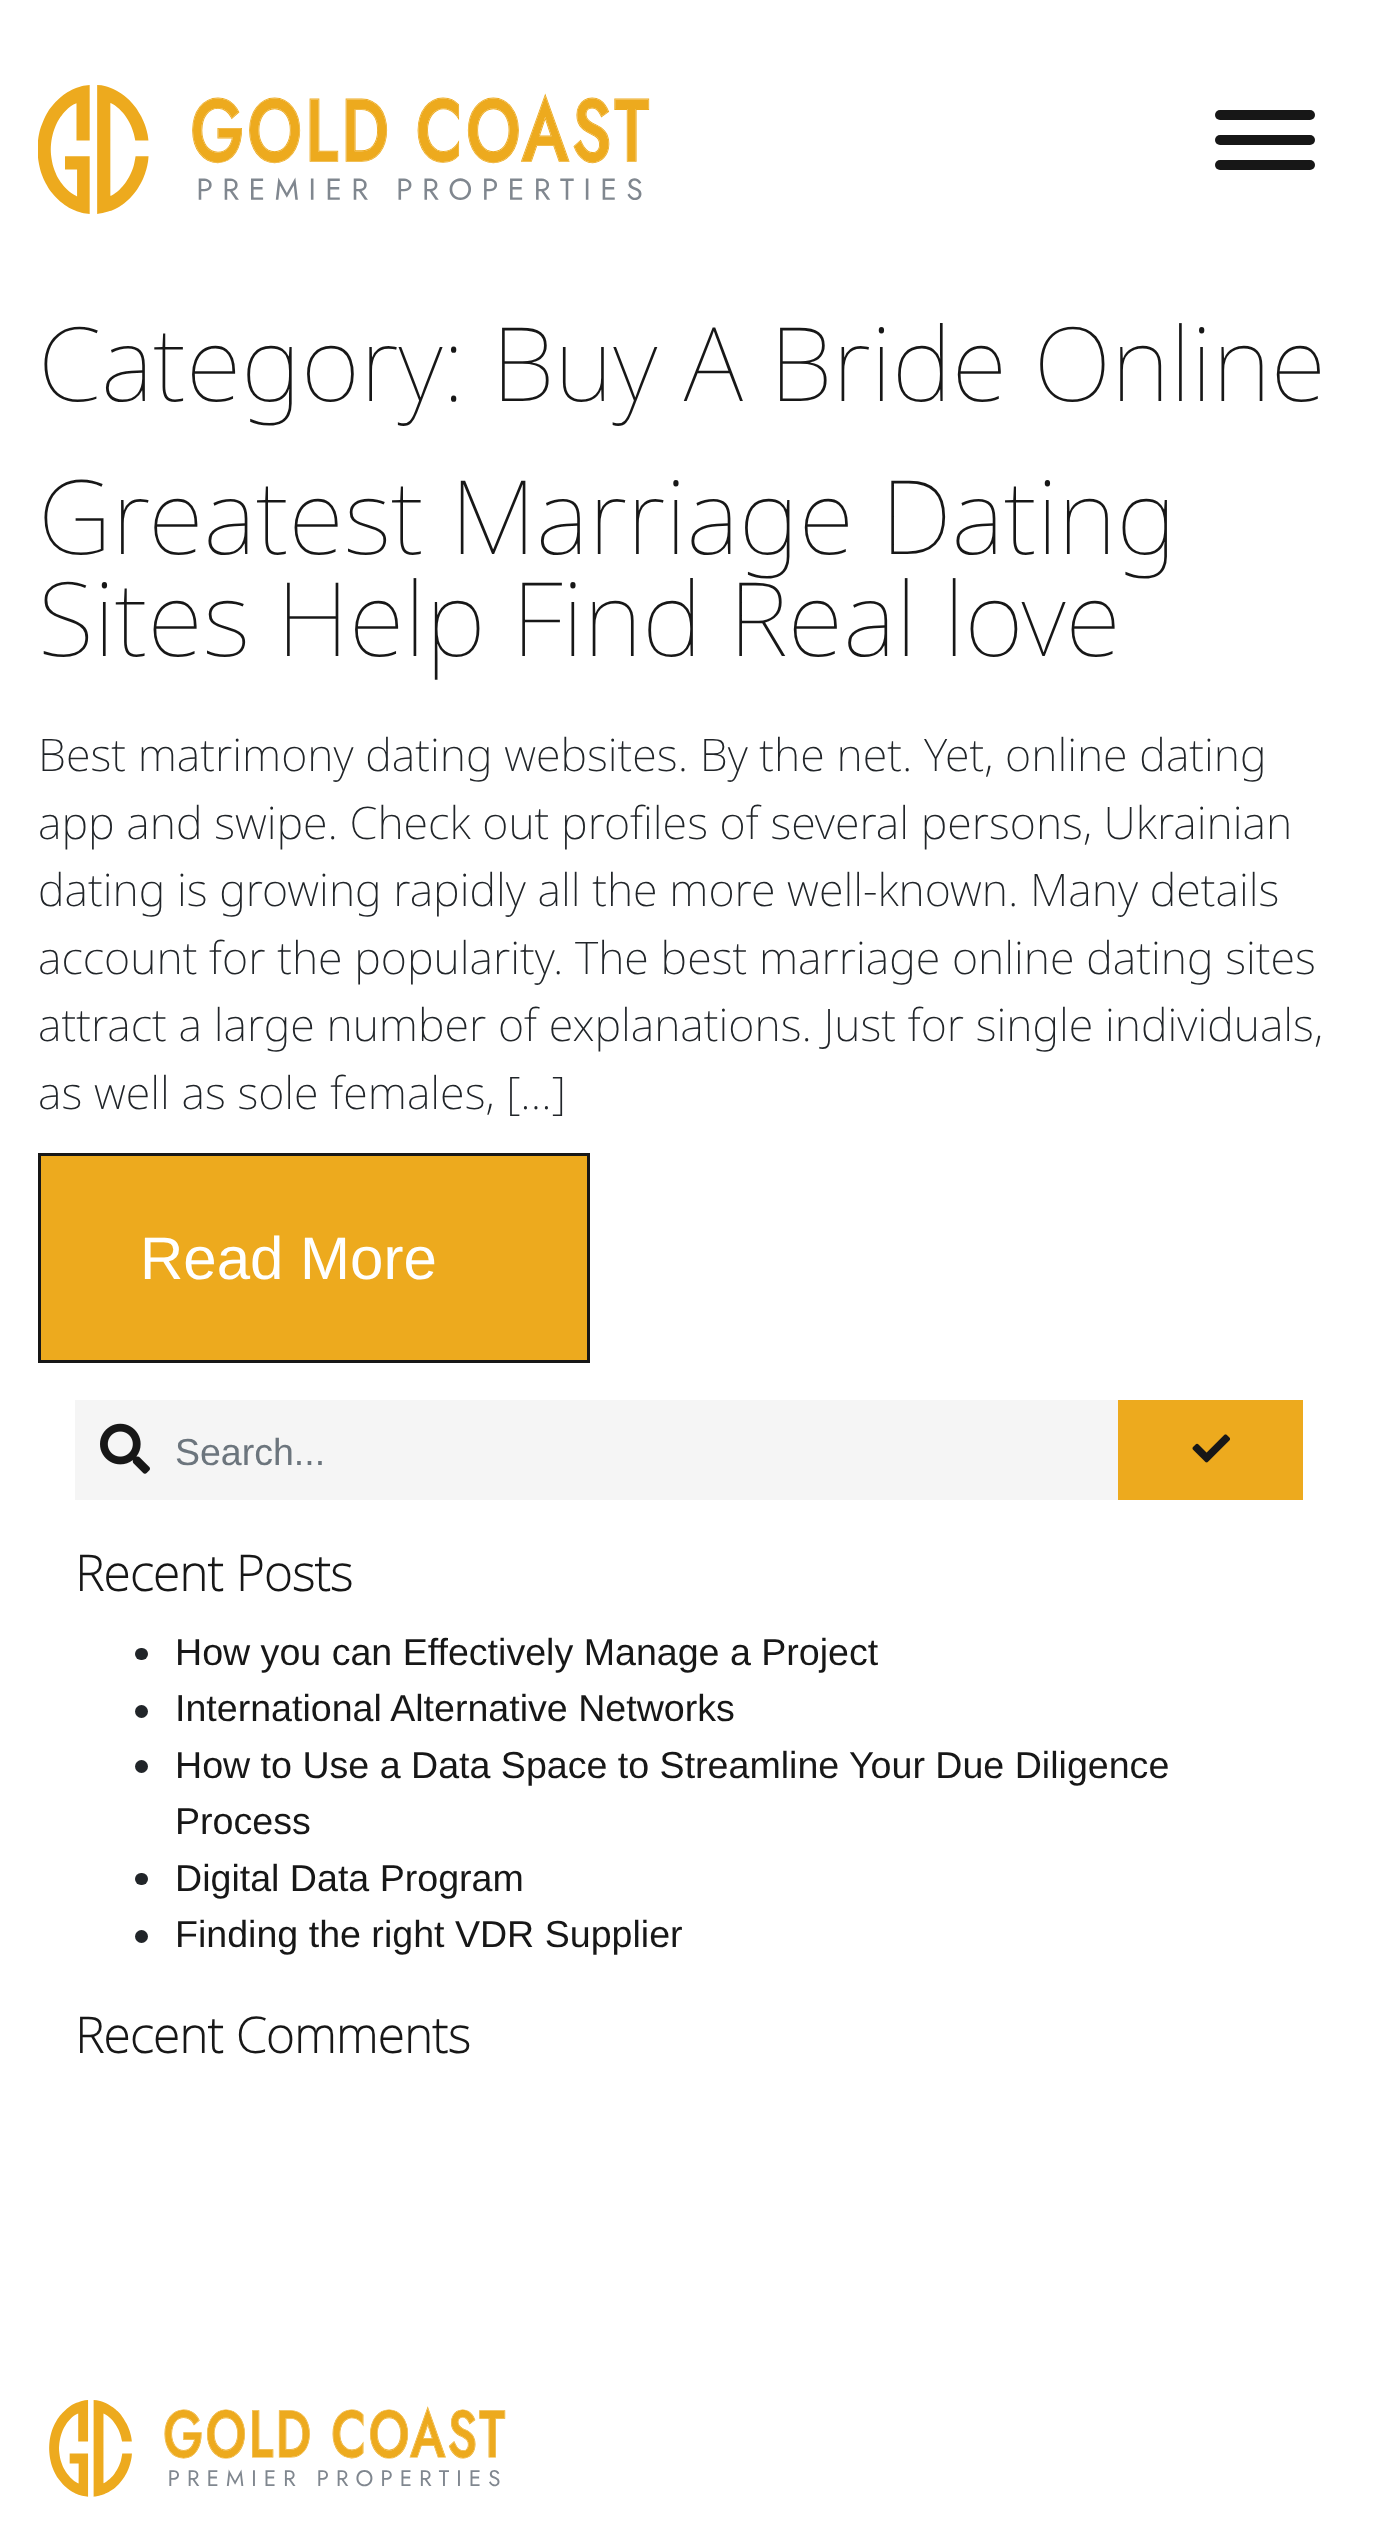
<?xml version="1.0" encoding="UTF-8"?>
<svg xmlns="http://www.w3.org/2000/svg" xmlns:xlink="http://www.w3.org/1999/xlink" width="1377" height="2527">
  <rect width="100%" height="100%" fill="#ffffff" />
  <image x="38" y="85" width="612" height="129" xlink:href="image1.png" />
  <rect x="1215" y="110" width="100" height="10" rx="5" fill="#171717" />
  <rect x="1215" y="135" width="100" height="10" rx="5" fill="#171717" />
  <rect x="1215" y="160" width="100" height="10" rx="5" fill="#171717" />
  <rect x="39.5" y="1154.5" width="549" height="207" fill="#edaa1e" stroke="#171717" stroke-width="3" />
  <rect x="75" y="1400" width="1043" height="100" fill="#f5f5f5" />
  <image x="100" y="1423" width="50" height="51" xlink:href="image2.png" />
  <rect x="1118" y="1400" width="185" height="100" fill="#edaa1e" />
  <image x="1192" y="1434" width="38" height="29" xlink:href="image3.png" />
  <rect x="135" y="1648" width="13" height="12" rx="6" fill="#212529" />
  <circle cx="141.5" cy="1711.5" r="6.5" fill="#212529" />
  <circle cx="141.5" cy="1766.5" r="6.5" fill="#212529" />
  <rect x="135" y="1873" width="13" height="12" rx="6" fill="#212529" />
  <circle cx="141.5" cy="1936.5" r="6.5" fill="#212529" />
  <image x="49" y="2400" width="457" height="97" xlink:href="image4.png" />
  <text x="38" y="401" style="font-family: Noto Sans; font-size: 102.5px; font-weight: 100; fill: #171717">Category: Buy A Bride Online</text>
  <text x="38" y="554" style="font-family: Noto Sans; font-size: 102.5px; font-weight: 100; fill: #171717">Greatest Marriage Dating</text>
  <text x="38" y="656" style="font-family: Noto Sans; font-size: 102.5px; font-weight: 100; fill: #171717">Sites Help Find Real love</text>
  <text x="38" y="771" style="font-family: Noto Sans; font-size: 45px; font-weight: 200; fill: #212529">Best matrimony dating websites. By the net. Yet, online dating</text>
  <text x="38" y="839" style="font-family: Noto Sans; font-size: 45px; font-weight: 200; fill: #212529">app and swipe. Check out profiles of several persons, Ukrainian</text>
  <text x="38" y="906" style="font-family: Noto Sans; font-size: 45px; font-weight: 200; fill: #212529">dating is growing rapidly all the more well-known. Many details</text>
  <text x="38" y="974" style="font-family: Noto Sans; font-size: 45px; font-weight: 200; fill: #212529">account for the popularity. The best marriage online dating sites</text>
  <text x="38" y="1041" style="font-family: Noto Sans; font-size: 45px; font-weight: 200; fill: #212529">attract a large number of explanations. Just for single individuals,</text>
  <text x="38" y="1109" style="font-family: Noto Sans; font-size: 45px; font-weight: 200; fill: #212529">as well as sole females, […]</text>
  <text x="140" y="1279" style="font-family: Liberation Sans; font-size: 60px; fill: #ffffff">Read More</text>
  <text x="175" y="1465" style="font-family: Liberation Sans; font-size: 37.5px; fill: #6c757d">Search...</text>
  <text x="75" y="1591" style="font-family: Noto Sans; font-size: 49px; font-weight: bold; fill: #171717">Recent Posts</text>
  <text x="175" y="1665" style="font-family: Liberation Sans; font-size: 37.6px; fill: #171717">How you can Effectively Manage a Project</text>
  <text x="175" y="1721" style="font-family: Liberation Sans; font-size: 37.6px; fill: #171717">International Alternative Networks</text>
  <text x="175" y="1778" style="font-family: Liberation Sans; font-size: 37.6px; fill: #171717">How to Use a Data Space to Streamline Your Due Diligence</text>
  <text x="175" y="1834" style="font-family: Liberation Sans; font-size: 37.6px; fill: #171717">Process</text>
  <text x="175" y="1891" style="font-family: Liberation Sans; font-size: 37.6px; fill: #171717">Digital Data Program</text>
  <text x="175" y="1947" style="font-family: Liberation Sans; font-size: 37.6px; fill: #171717">Finding the right VDR Supplier</text>
  <text x="75" y="2053" style="font-family: Noto Sans; font-size: 49px; font-weight: bold; fill: #171717">Recent Comments</text>
</svg>
